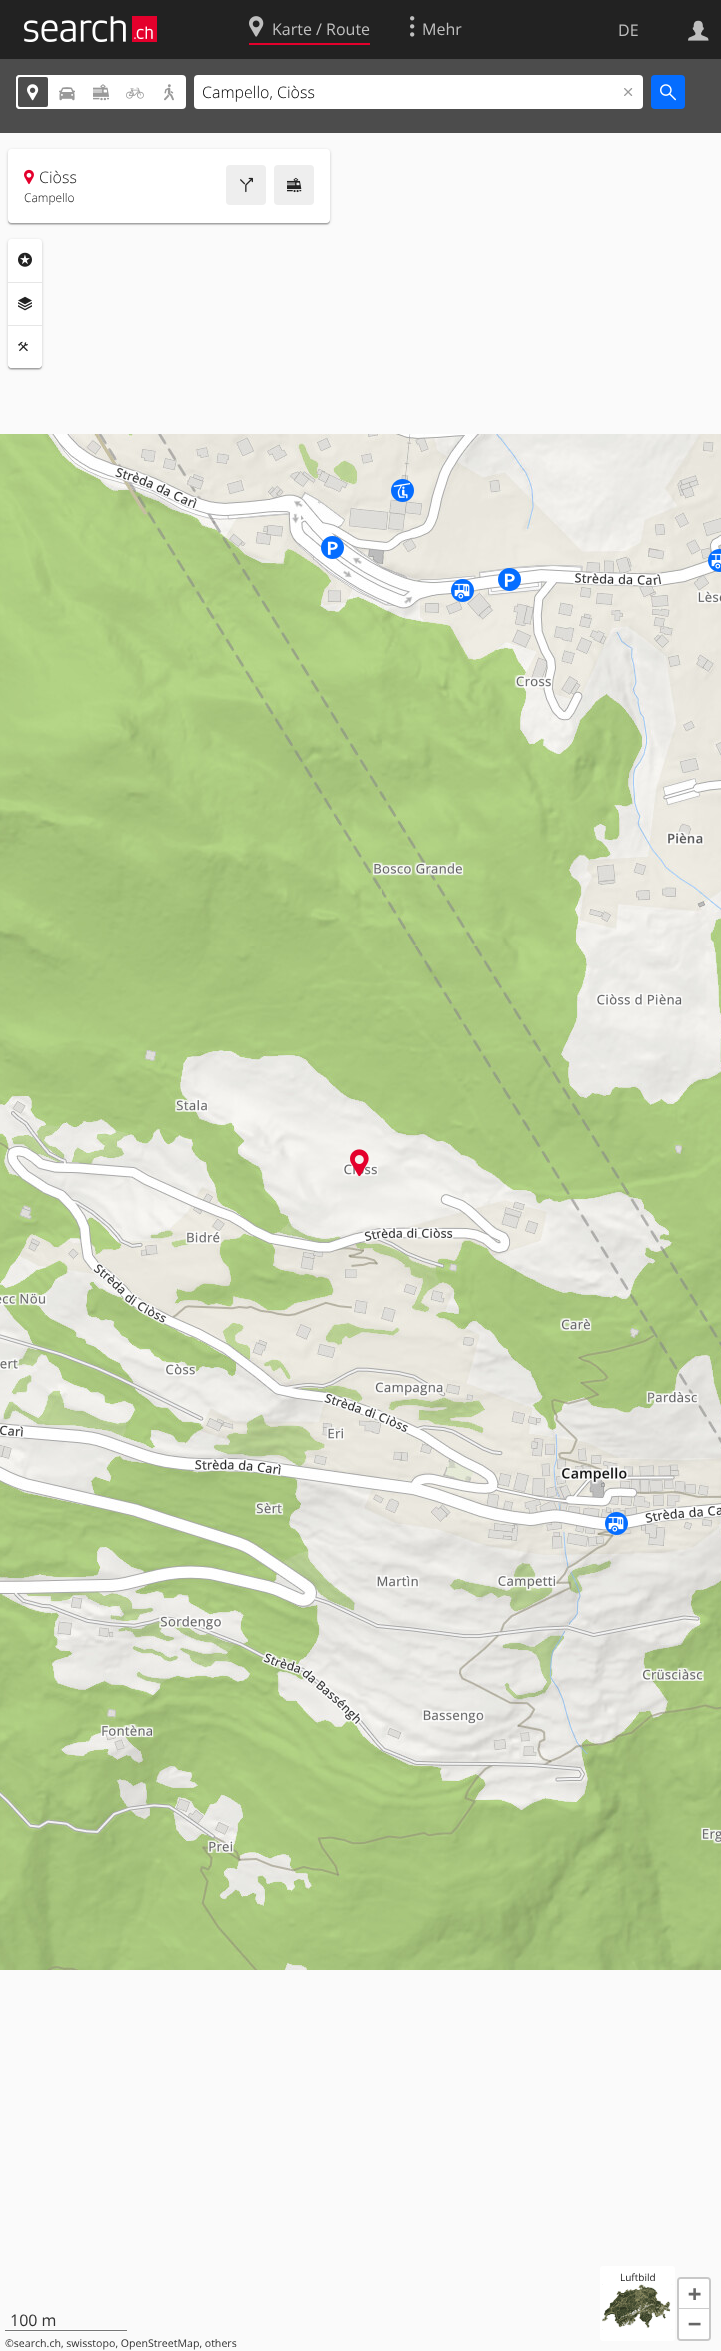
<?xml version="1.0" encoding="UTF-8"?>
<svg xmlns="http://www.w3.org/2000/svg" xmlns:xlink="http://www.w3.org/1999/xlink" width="721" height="2351">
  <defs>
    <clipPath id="clip1"><path d="M 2 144 h 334 v 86 h -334 z m 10 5 h 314 c 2 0 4 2 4 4 v 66 c 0 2 -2 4 -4 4 h -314 c -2 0 -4 -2 -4 -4 v -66 c 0 -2 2 -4 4 -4 z" clip-rule="evenodd" /></clipPath>
    <clipPath id="clip2"><path d="M 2 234 h 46 v 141 h -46 z m 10 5 h 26 c 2 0 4 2 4 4 v 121 c 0 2 -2 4 -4 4 h -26 c -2 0 -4 -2 -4 -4 v -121 c 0 -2 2 -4 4 -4 z" clip-rule="evenodd" /></clipPath>
    <clipPath id="clip3"><rect x="8" y="239" width="34" height="129" rx="3" /></clipPath>
  </defs>
  <rect width="100%" height="100%" fill="#fafafa" />
  <rect width="721" height="59" fill="#222222" />
  <image x="24" y="16" width="133" height="26" xlink:href="image1.png" />
  <rect x="249" y="43" width="121" height="2" fill="#e4002c" />
  <image x="249" y="16" width="15" height="21" xlink:href="image2.png" />
  <image x="410" y="16" width="5" height="21" xlink:href="image3.png" />
  <image x="688" y="20" width="21" height="21" xlink:href="image4.png" />
  <rect y="59" width="721" height="74" fill="#4c4c4c" />
  <rect x="16" y="75" width="170" height="34" rx="4" fill="#ffffff" />
  <rect x="17" y="76" width="32" height="32" rx="3" fill="#4c4c4c" stroke="#ffffff" stroke-width="2" />
  <image x="27" y="84" width="12" height="17" xlink:href="image5.png" />
  <image x="59" y="87" width="16" height="14" xlink:href="image6.png" />
  <image x="93" y="84" width="17" height="17" xlink:href="image7.png" />
  <image x="126" y="87" width="18" height="12" xlink:href="image8.png" />
  <image x="164" y="84" width="10" height="17" xlink:href="image9.png" />
  <rect x="194" y="75" width="449" height="34" rx="4" fill="#ffffff" />
  <image x="624" y="88" width="9" height="8" xlink:href="image10.png" />
  <rect x="651" y="75" width="34" height="34" rx="4" fill="#056dff" />
  <image x="660" y="84" width="16" height="17" xlink:href="image11.png" />
  <g clip-path="url(#clip1)">
    <rect x="8" y="150" width="322" height="74" rx="4" fill="#000000" fill-opacity="0.2" filter="blur(1.5px)" />
  </g>
  <rect x="8" y="151" width="322" height="74" rx="4" fill="#000000" fill-opacity="0.12" filter="blur(0.5px)" />
  <rect x="8" y="150" width="322" height="74" rx="4" fill="#000000" fill-opacity="0.14" filter="blur(0.5px)" />
  <rect x="8" y="149" width="322" height="74" rx="4" fill="#ffffff" />
  <image x="24" y="169" width="10" height="16" xlink:href="image12.png" />
  <rect x="226" y="165" width="40" height="40" rx="4" fill="#eeeeee" />
  <image x="240" y="177" width="13" height="16" xlink:href="image13.png" />
  <rect x="274" y="165" width="40" height="40" rx="4" fill="#eeeeee" />
  <image x="287" y="177" width="15" height="16" xlink:href="image14.png" />
  <g clip-path="url(#clip2)">
    <rect x="8" y="240" width="34" height="129" rx="4" fill="#000000" fill-opacity="0.2" filter="blur(1.5px)" />
  </g>
  <rect x="8" y="241" width="34" height="129" rx="4" fill="#000000" fill-opacity="0.12" filter="blur(0.5px)" />
  <rect x="8" y="240" width="34" height="129" rx="4" fill="#000000" fill-opacity="0.14" filter="blur(0.5px)" />
  <rect x="8" y="239" width="34" height="129" rx="4" fill="#ffffff" />
  <rect x="8" y="282" width="34" height="1" fill="#e6e6e6" />
  <image x="18" y="252" width="14" height="15" xlink:href="image15.png" />
  <rect x="8" y="325" width="34" height="1" fill="#e6e6e6" />
  <image x="18" y="296" width="14" height="15" xlink:href="image16.png" />
  <g clip-path="url(#clip3)">
    <path d="M 8 326 h 34 v 38 c 0 2 -2 4 -4 4 h -26 c -2 0 -4 -2 -4 -4 z" fill="#ffffff" />
  </g>
  <image x="18" y="341" width="10" height="11" xlink:href="image17.png" />
  <rect x="600" y="2266" width="75" height="75" rx="3" fill="#ffffff" />
  <image x="602" y="2284" width="71" height="46" xlink:href="image18.png" />
  <image x="0" y="434" width="382" height="512" xlink:href="image19.png" />
  <image x="382" y="434" width="339" height="512" xlink:href="image20.png" />
  <image x="0" y="946" width="382" height="512" xlink:href="image21.png" />
  <image x="382" y="946" width="339" height="512" xlink:href="image22.png" />
  <image x="0" y="1458" width="382" height="512" xlink:href="image23.png" />
  <image x="382" y="1458" width="339" height="512" xlink:href="image24.png" />
  <image x="113" y="465" width="269" height="411" xlink:href="image25.png" />
  <image x="382" y="479" width="339" height="397" xlink:href="image26.png" />
  <image x="0" y="1098" width="382" height="342" xlink:href="image27.png" />
  <image x="382" y="992" width="317" height="443" xlink:href="image28.png" />
  <image x="100" y="1458" width="282" height="395" xlink:href="image29.png" />
  <image x="382" y="1466" width="339" height="378" xlink:href="image30.png" />
  <image x="350" y="1149" width="19" height="28" xlink:href="image31.png" />
  <rect x="678" y="2278" width="32" height="62" rx="3" fill="none" stroke="#c8c8c8" stroke-width="2" />
  <path d="M 681 2279 h 26 c 1 0 2 1 2 2 v 28 h -30 v -28 c 0 -1 1 -2 2 -2 z" fill="#ffffff" />
  <rect x="679" y="2308" width="30" height="1" fill="#cccccc" />
  <path d="M 679 2309 h 30 v 28 c 0 1 -1 2 -2 2 h -26 c -1 0 -2 -1 -2 -2 z" fill="#ffffff" />
  <rect x="5" y="2331" width="122" height="1" fill="#fdfdfd" />
  <rect x="5" y="2329" width="122" height="1" fill="#fdfdfd" />
  <rect x="5" y="2330" width="122" height="1" fill="#777777" />
  <text x="272" y="35" style="font-family: Open Sans; font-size: 16px; fill: #bfbfbf">Karte / Route</text>
  <text x="422" y="35" style="font-family: Open Sans; font-size: 16px; fill: #bfbfbf">Mehr</text>
  <text x="618" y="36" style="font-family: Open Sans; font-size: 16px; fill: #bfbfbf">DE</text>
  <text x="202" y="98" style="font-family: Open Sans; font-size: 16px; font-weight: 300; fill: #000000">Campello, Ciòss</text>
  <text x="39" y="183" style="font-family: Open Sans; font-size: 16px; font-weight: 300; fill: #222222">Ciòss</text>
  <text x="24" y="202" style="font-family: Open Sans; font-size: 12px; font-weight: 300; fill: #111111">Campello</text>
  <text x="620" y="2281" style="font-family: Open Sans; font-size: 10px; fill: #222222">Luftbild</text>
  <text x="688" y="2301" style="font-family: DejaVu Sans Mono; font-size: 22px; font-weight: bold; fill: #666666">+</text>
  <text x="688" y="2331" style="font-family: DejaVu Sans Mono; font-size: 22px; font-weight: bold; fill: #666666">−</text>
  <text x="10" y="2326" style="font-family: Open Sans; font-size: 16px; fill: #333333">100 m</text>
  <text x="5" y="2347" style="font-family: Open Sans; font-size: 10.6px; fill: #333333">©search.ch, swisstopo, OpenStreetMap, others</text>
</svg>
